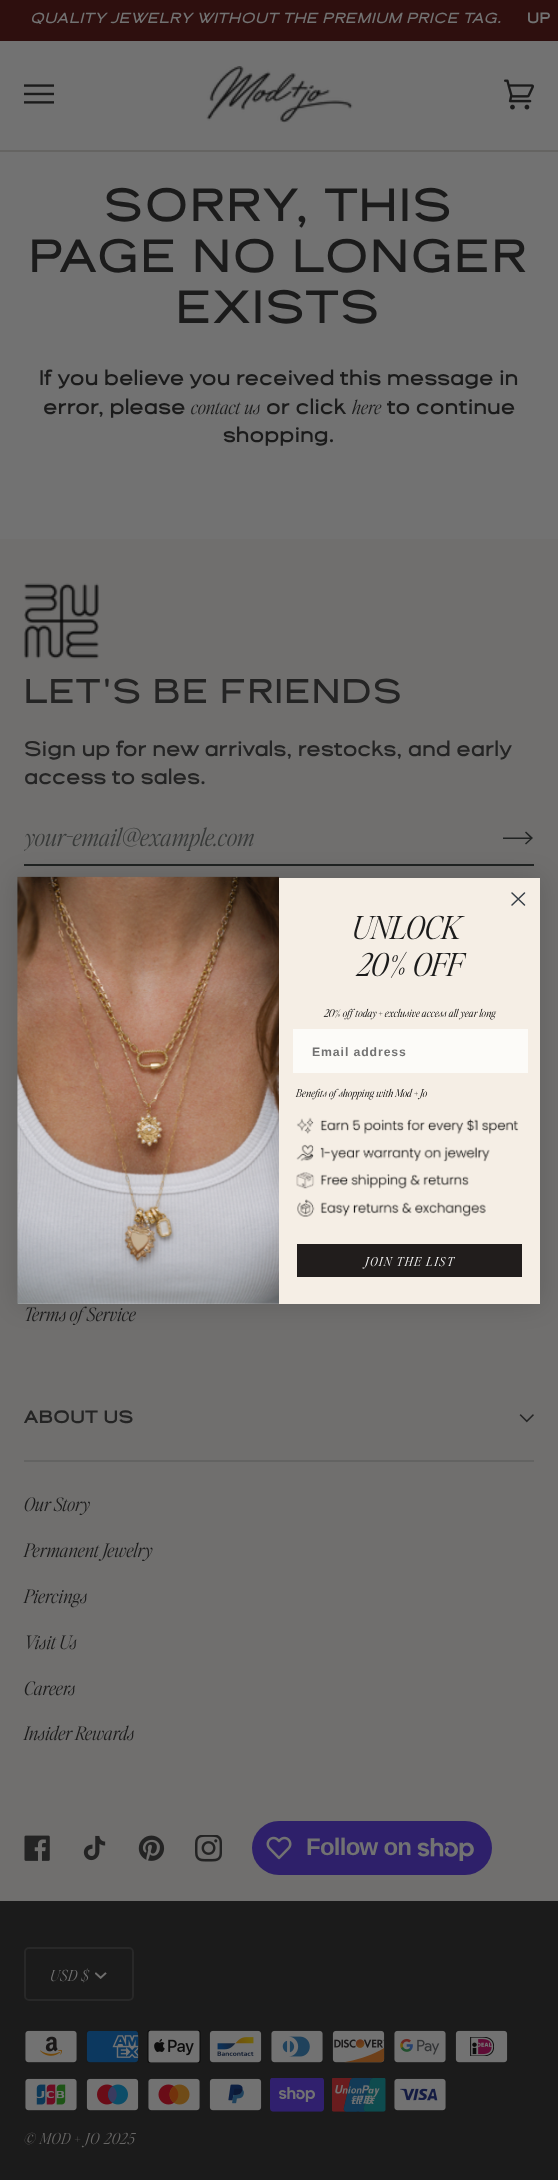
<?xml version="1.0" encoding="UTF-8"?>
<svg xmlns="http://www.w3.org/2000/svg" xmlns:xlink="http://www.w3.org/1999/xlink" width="558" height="2180">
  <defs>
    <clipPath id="clip1"><rect x="24" y="821" width="416" height="31" /></clipPath>
  </defs>
  <rect width="100%" height="100%" fill="#727272" />
  <rect width="558" height="41" fill="#2e0f0e" />
  <rect y="150" width="558" height="2" fill="#656462" />
  <image x="24" y="84" width="30" height="20" xlink:href="image1.png" />
  <image x="206" y="66" width="147" height="57" xlink:href="image2.png" />
  <image x="504" y="79" width="30" height="31" xlink:href="image3.png" />
  <rect y="539" width="558" height="1362" fill="#706f6e" />
  <image x="24" y="583" width="75" height="76" xlink:href="image4.png" />
  <rect x="24" y="864" width="510" height="2" fill="#202322" />
  <path d="M 525 832.5 l 1 -1 l 7 6.5 l -7 6.5 l -1 -1 l 5 -4.5 h -27 v -1.5 h 27 z" fill="#202322" />
  <rect x="24" y="1460" width="510" height="2" fill="#636362" />
  <image x="519" y="1414" width="15" height="9" xlink:href="image5.png" />
  <image x="24" y="1835" width="26" height="26" xlink:href="image6.png" />
  <image x="83" y="1835" width="23" height="26" xlink:href="image7.png" />
  <image x="138" y="1835" width="27" height="26" xlink:href="image8.png" />
  <image x="195" y="1835" width="27" height="27" xlink:href="image9.png" />
  <rect x="252" y="1821" width="240" height="54" rx="27" fill="#2e206a" />
  <image x="266" y="1836" width="26" height="24" xlink:href="image10.png" />
  <image x="417" y="1838" width="57" height="23" xlink:href="image11.png" />
  <rect x="18" y="878" width="522" height="426" fill="#000000" fill-opacity="0.15" filter="blur(13px)" />
  <rect x="18" y="878" width="522" height="426" fill="#f5eee5" />
  <path d="M 512 893 l 12.5 12 m -12.5 0 l 12.5 -12 z" fill="none" stroke="#373f47" stroke-width="1.5" stroke-linecap="round" stroke-linejoin="round" />
  <image x="17" y="876" width="262" height="428" xlink:href="image12.png" />
  <rect x="293" y="1029" width="235" height="44" fill="#fcfbf8" />
  <image x="296" y="1117" width="223" height="100" xlink:href="image13.png" />
  <rect x="297" y="1244" width="225" height="33" fill="#211d1c" />
  <rect y="1901" width="558" height="279" fill="#1b1b1b" />
  <rect x="25" y="1948" width="108" height="52" rx="4" fill="none" stroke="#282828" stroke-width="2" />
  <image x="95" y="1972" width="12" height="7" xlink:href="image14.png" />
  <image x="25" y="2030" width="52" height="33" xlink:href="image15.png" />
  <image x="86" y="2030" width="53" height="33" xlink:href="image16.png" />
  <image x="147" y="2030" width="54" height="33" xlink:href="image17.png" />
  <image x="209" y="2030" width="53" height="33" xlink:href="image18.png" />
  <image x="271" y="2030" width="52" height="33" xlink:href="image19.png" />
  <image x="332" y="2030" width="53" height="33" xlink:href="image20.png" />
  <image x="394" y="2030" width="52" height="33" xlink:href="image21.png" />
  <image x="455" y="2030" width="53" height="33" xlink:href="image22.png" />
  <image x="25" y="2078" width="52" height="33" xlink:href="image23.png" />
  <image x="86" y="2078" width="53" height="33" xlink:href="image24.png" />
  <image x="148" y="2078" width="52" height="33" xlink:href="image25.png" />
  <image x="209" y="2078" width="53" height="33" xlink:href="image26.png" />
  <image x="270" y="2078" width="54" height="34" xlink:href="image27.png" />
  <image x="332" y="2078" width="54" height="34" xlink:href="image28.png" />
  <image x="394" y="2078" width="52" height="33" xlink:href="image29.png" />
  <text x="30" y="23" style="font-family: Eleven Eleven; font-size: 12.75px; font-weight: 500; font-style: italic; letter-spacing: 0.65px; fill: #727272">QUALITY JEWELRY WITHOUT THE PREMIUM PRICE TAG.</text>
  <text x="527" y="23" style="font-family: Eleven Eleven; font-size: 12.75px; font-weight: bold; letter-spacing: 0.65px; fill: #727272">UP</text>
  <text x="104" y="221" style="font-family: Eleven Eleven; font-size: 40.75px; font-weight: 500; letter-spacing: 2px; fill: #1b1b1b">SORRY, THIS</text>
  <text x="29" y="272" style="font-family: Eleven Eleven; font-size: 40.75px; font-weight: 500; letter-spacing: 2px; fill: #1b1b1b">PAGE NO LONGER</text>
  <text x="176" y="323" style="font-family: Eleven Eleven; font-size: 40.75px; font-weight: 500; letter-spacing: 2px; fill: #1b1b1b">EXISTS</text>
  <text x="39" y="385" style="font-family: Eleven Eleven; font-size: 18.5px; font-weight: 500; fill: #1b1b1b">If you believe you received this message in</text>
  <text x="43" y="414" style="font-family: Eleven Eleven; font-size: 18.5px; font-weight: 500; fill: #1b1b1b">error, please</text>
  <text x="191" y="414" style="font-family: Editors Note; font-size: 18.5px; font-weight: 300; font-style: italic; fill: #1b1b1b">contact us</text>
  <text x="266" y="414" style="font-family: Eleven Eleven; font-size: 18.5px; font-weight: 500; fill: #1b1b1b">or click</text>
  <text x="352" y="414" style="font-family: Editors Note; font-size: 18.5px; font-weight: 300; font-style: italic; fill: #1b1b1b">here</text>
  <text x="387" y="414" style="font-family: Eleven Eleven; font-size: 18.5px; font-weight: 500; fill: #1b1b1b">to continue</text>
  <text x="223" y="442" style="font-family: Eleven Eleven; font-size: 18.5px; font-weight: 500; fill: #1b1b1b">shopping.</text>
  <text x="24" y="703" style="font-family: Eleven Eleven; font-size: 30px; font-weight: 500; letter-spacing: 1.5px; fill: #242424">LET'S BE FRIENDS</text>
  <text x="24" y="756" style="font-family: Eleven Eleven; font-size: 18.5px; font-weight: 500; fill: #242424">Sign up for new arrivals, restocks, and early</text>
  <text x="24" y="784" style="font-family: Eleven Eleven; font-size: 18.5px; font-weight: 500; fill: #242424">access to sales.</text>
  <g clip-path="url(#clip1)">
    <text x="24" y="846" style="font-family: Editors Note; font-size: 24px; font-weight: 300; font-style: italic; fill: #383a39">your-email@example.com</text>
  </g>
  <text x="24" y="1321" style="font-family: Editors Note; font-size: 18.5px; font-weight: 300; font-style: italic; fill: #1b1b1b">Terms of Service</text>
  <text x="24" y="1423" style="font-family: Eleven Eleven; font-size: 15.25px; font-weight: bold; letter-spacing: 0.75px; fill: #242424">ABOUT US</text>
  <text x="24" y="1511" style="font-family: Editors Note; font-size: 18.5px; font-weight: 300; font-style: italic; fill: #1b1b1b">Our Story</text>
  <text x="24" y="1557" style="font-family: Editors Note; font-size: 18.5px; font-weight: 300; font-style: italic; fill: #1b1b1b">Permanent Jewelry</text>
  <text x="24" y="1603" style="font-family: Editors Note; font-size: 18.5px; font-weight: 300; font-style: italic; fill: #1b1b1b">Piercings</text>
  <text x="24" y="1649" style="font-family: Editors Note; font-size: 18.5px; font-weight: 300; font-style: italic; fill: #1b1b1b">Visit Us</text>
  <text x="24" y="1695" style="font-family: Editors Note; font-size: 18.5px; font-weight: 300; font-style: italic; fill: #1b1b1b">Careers</text>
  <text x="24" y="1740" style="font-family: Editors Note; font-size: 18.5px; font-weight: 300; font-style: italic; fill: #1b1b1b">Insider Rewards</text>
  <text x="306" y="1855" style="font-family: Liberation Sans; font-size: 24px; font-weight: bold; letter-spacing: -0.75px; fill: #727272">Follow on</text>
  <text x="352" y="939" style="font-family: Editors Note; font-size: 31.5px; font-weight: 300; font-style: italic; fill: #1b1b1b">UNLOCK</text>
  <text x="357" y="976" style="font-family: Editors Note; font-size: 31.5px; font-weight: 300; font-style: italic; fill: #1b1b1b">20% OFF</text>
  <text x="324" y="1017" style="font-family: Editors Note; font-size: 10.5px; font-weight: 300; font-style: italic; fill: #000000">20% off today + exclusive access all year long</text>
  <text x="312" y="1056" style="font-family: Liberation Sans; font-size: 12.25px; font-weight: bold; letter-spacing: 0.9px; fill: #727272">Email address</text>
  <text x="296" y="1097" style="font-family: Editors Note; font-size: 10.5px; font-weight: 300; font-style: italic; fill: #000000">Benefits of shopping with Mod + Jo</text>
  <text x="365" y="1266" style="font-family: Editors Note; font-size: 12.25px; font-weight: 300; font-style: italic; letter-spacing: 1.75px; fill: #ffffff">JOIN THE LIST</text>
  <text x="50" y="1981" style="font-family: Editors Note; font-size: 15.25px; font-weight: 300; font-style: italic; letter-spacing: 0.75px; fill: #727272">USD $</text>
  <text x="24" y="2144" style="font-family: Editors Note; font-size: 15.25px; font-weight: 300; font-style: italic; letter-spacing: 0.75px; fill: #686766">© MOD + JO</text>
  <text x="104" y="2144" style="font-family: Editors Note; font-size: 15.25px; font-weight: 300; font-style: italic; letter-spacing: 0.75px; fill: #686766">2025</text>
</svg>
